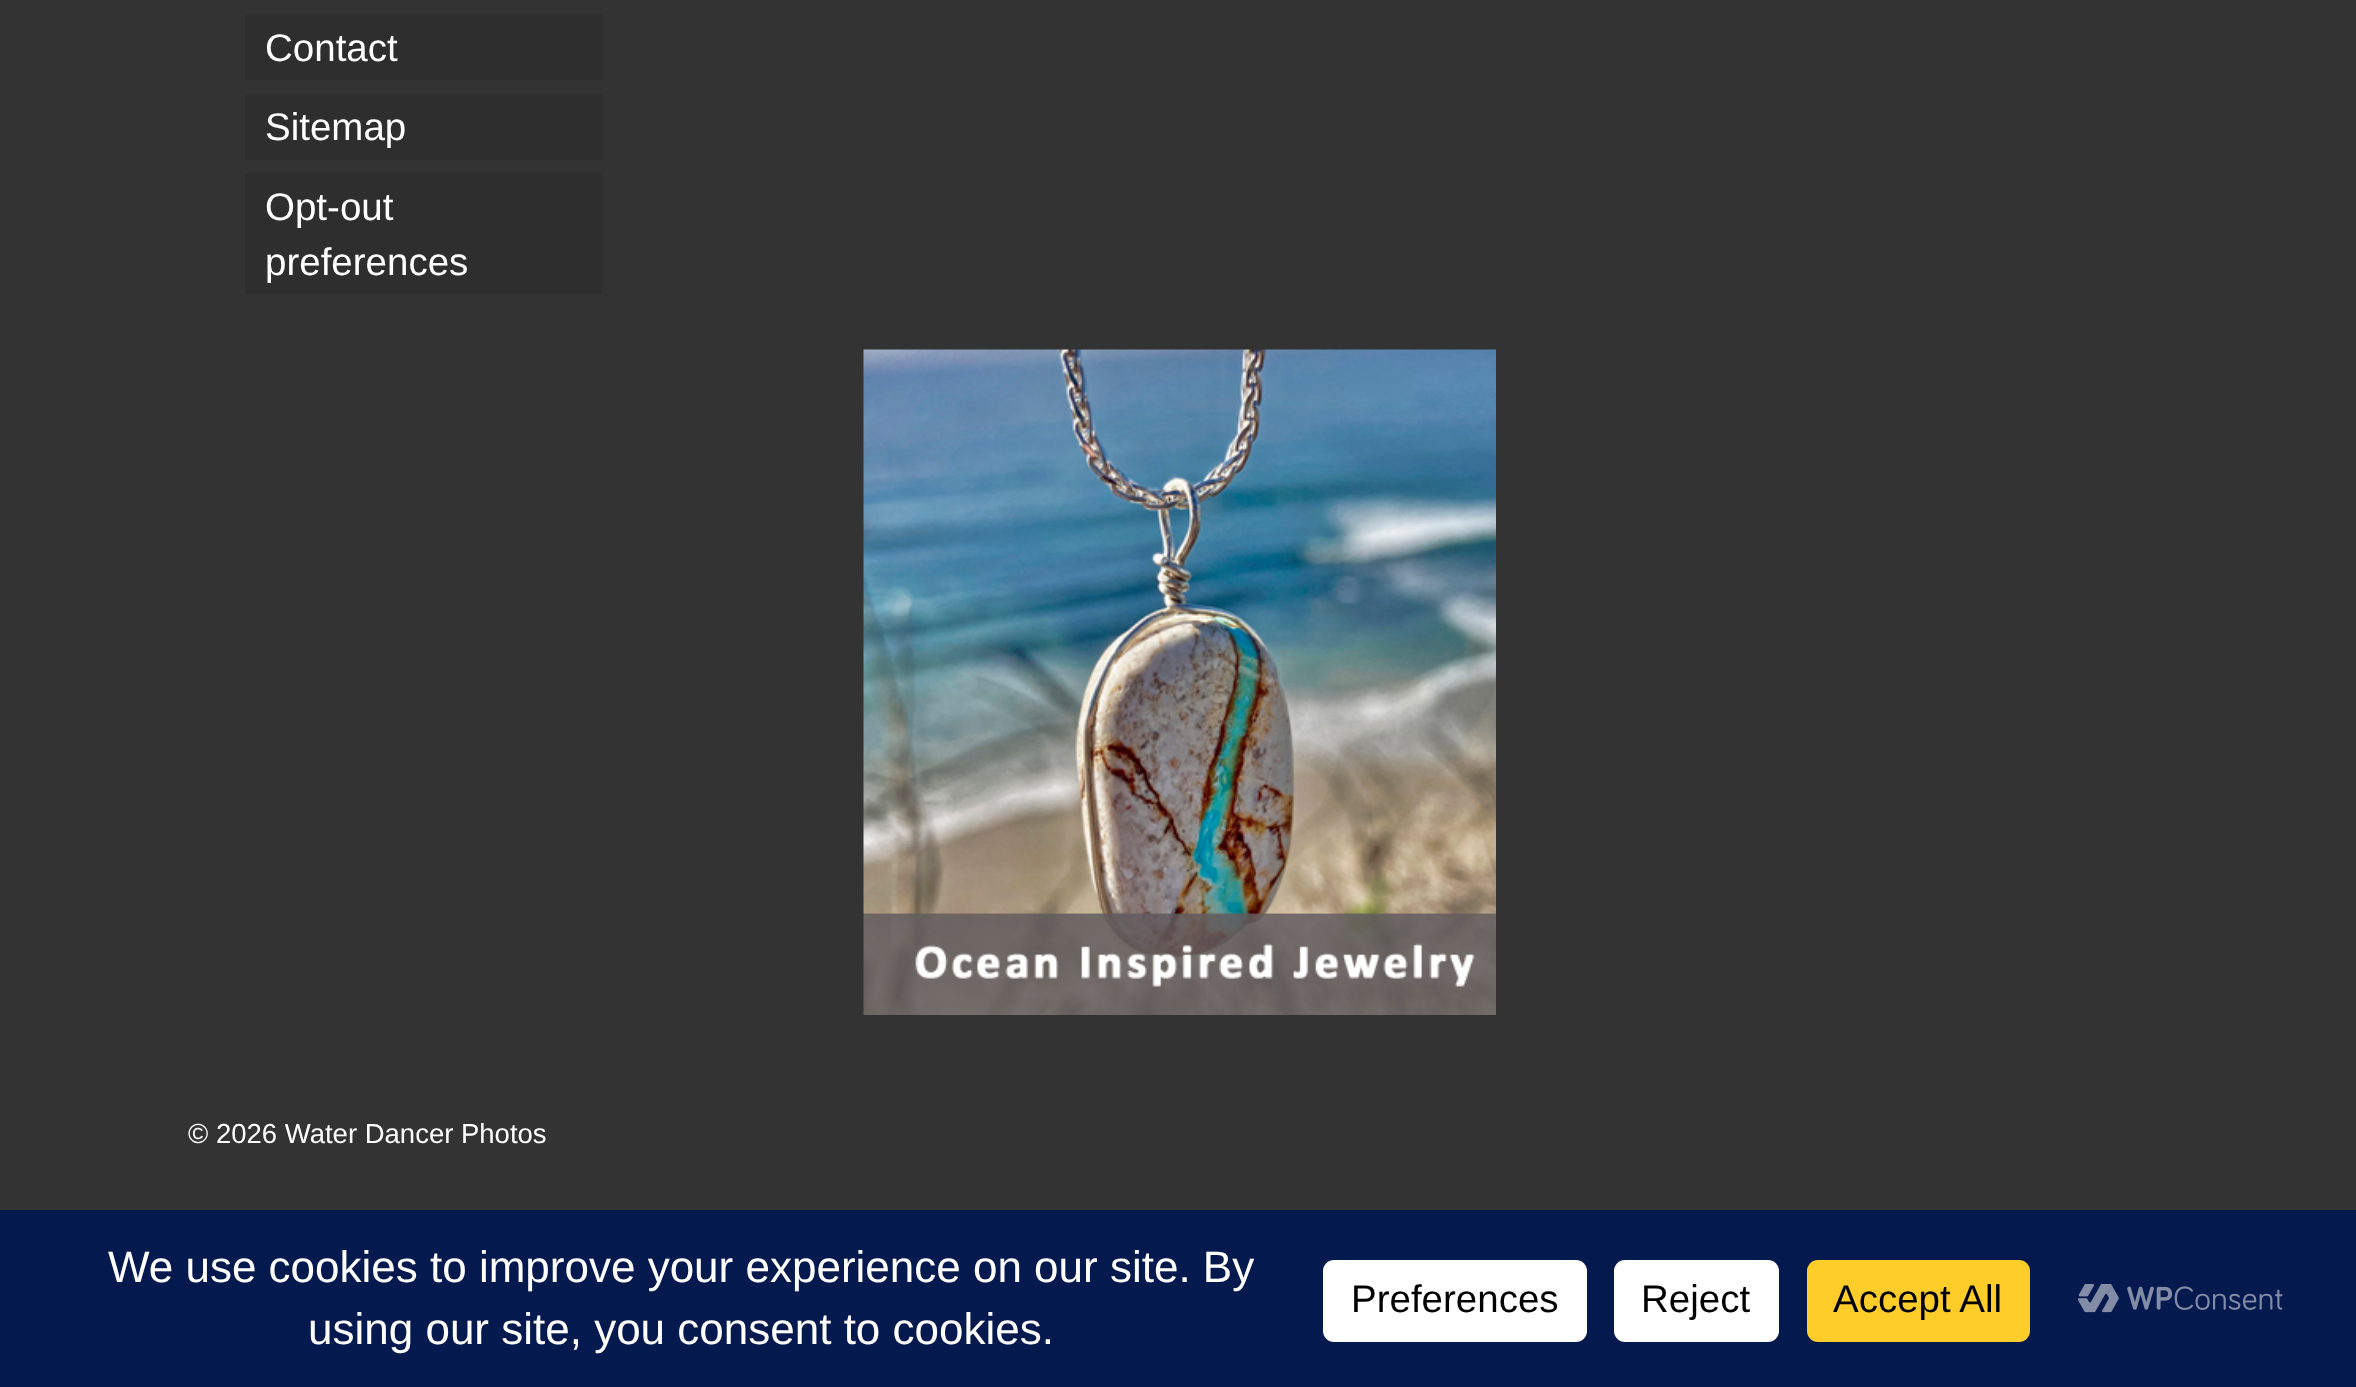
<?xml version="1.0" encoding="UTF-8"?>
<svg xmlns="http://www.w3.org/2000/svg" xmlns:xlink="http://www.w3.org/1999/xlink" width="2356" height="1387">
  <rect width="100%" height="100%" fill="#333333" />
  <rect x="245" y="14" width="357" height="66" fill="#2e2e2e" />
  <rect x="245" y="94" width="357" height="66" fill="#2e2e2e" />
  <rect x="245" y="173" width="357" height="121" fill="#2e2e2e" />
  <image x="863" y="349" width="633" height="666" xlink:href="image1.png" />
  <rect y="1210" width="2356" height="177" fill="#04194e" />
  <rect x="1323" y="1260" width="264" height="82" rx="11" fill="#ffffff" />
  <rect x="1614" y="1260" width="165" height="82" rx="11" fill="#ffffff" />
  <rect x="1807" y="1260" width="223" height="82" rx="11" fill="#ffcd2a" />
  <image x="2078" y="1284" width="205" height="29" xlink:href="image2.png" />
  <text x="265" y="61" style="font-family: Liberation Sans; font-size: 38.5px; fill: #ffffff">Contact</text>
  <text x="265" y="140" style="font-family: Liberation Sans; font-size: 38.5px; fill: #ffffff">Sitemap</text>
  <text x="265" y="220" style="font-family: Liberation Sans; font-size: 38.5px; fill: #ffffff">Opt-out</text>
  <text x="265" y="275" style="font-family: Liberation Sans; font-size: 38.5px; fill: #ffffff">preferences</text>
  <text x="188" y="1143" style="font-family: Liberation Sans; font-size: 27.5px; fill: #ffffff">© 2026 Water Dancer Photos</text>
  <text x="108" y="1282" style="font-family: Liberation Sans; font-size: 44px; fill: #ffffff">We use cookies to improve your experience on our site. By</text>
  <text x="308" y="1344" style="font-family: Liberation Sans; font-size: 44px; fill: #ffffff">using our site, you consent to cookies.</text>
  <text x="1351" y="1312" style="font-family: Liberation Sans; font-size: 38.5px; fill: #000000">Preferences</text>
  <text x="1641" y="1312" style="font-family: Liberation Sans; font-size: 38.5px; fill: #000000">Reject</text>
  <text x="1833" y="1312" style="font-family: Liberation Sans; font-size: 38.5px; fill: #000000">Accept All</text>
</svg>
